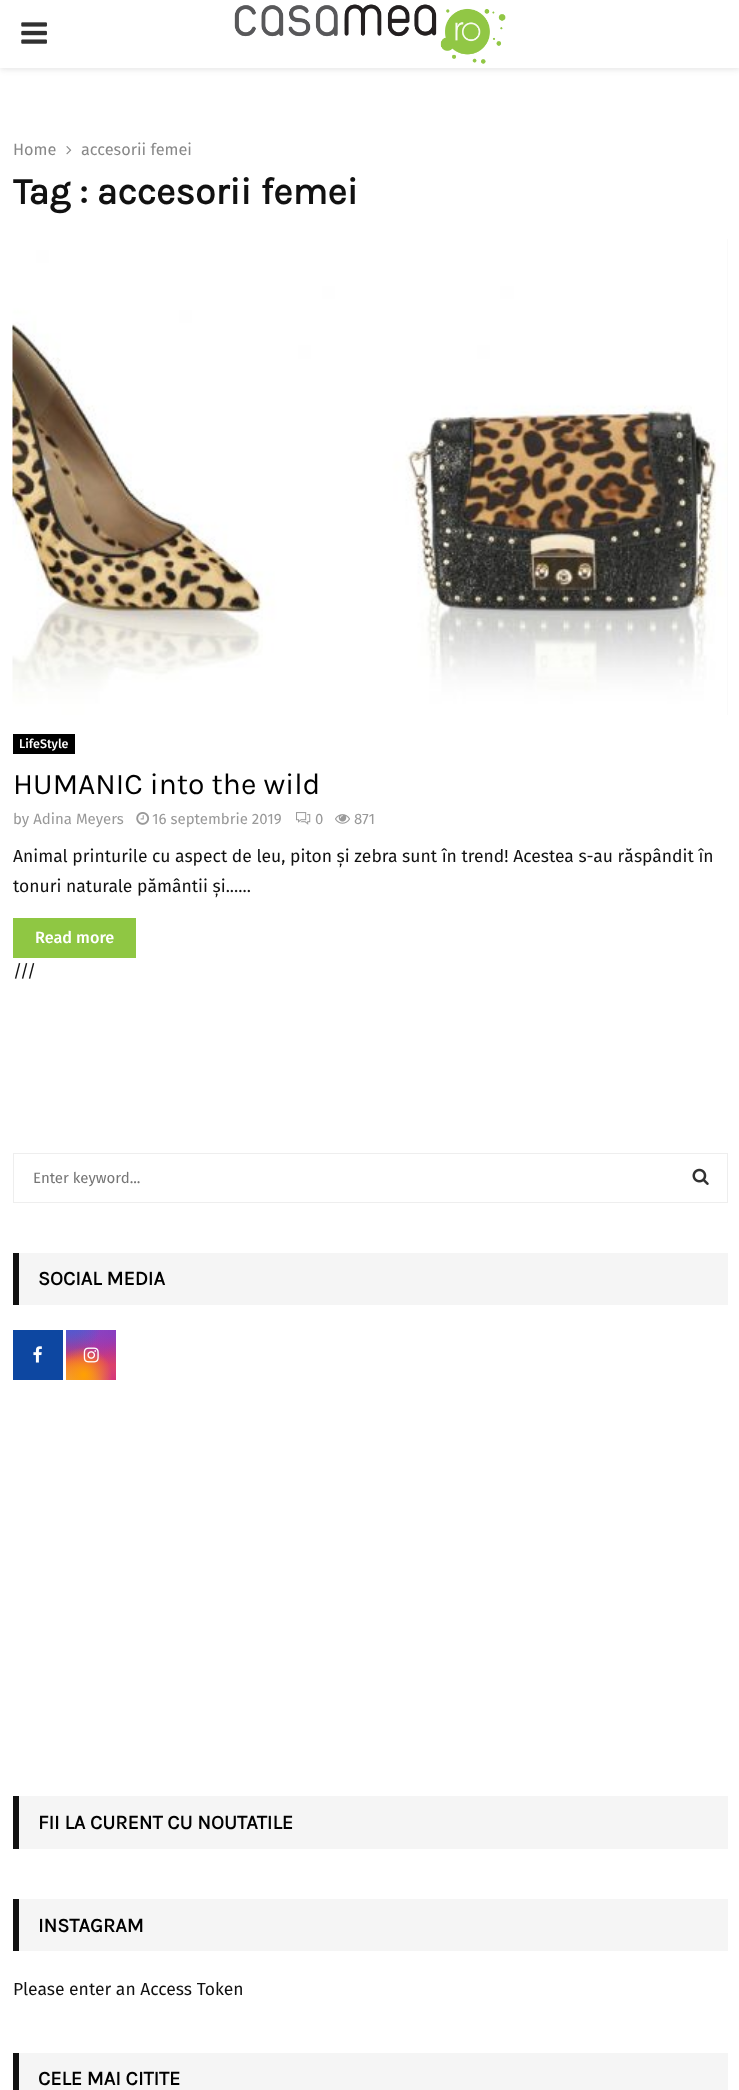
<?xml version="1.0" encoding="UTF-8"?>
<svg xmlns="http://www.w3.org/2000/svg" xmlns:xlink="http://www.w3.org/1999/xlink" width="739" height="2090">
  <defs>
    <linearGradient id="g1" gradientUnits="userSpaceOnUse" x1="91" y1="1330" x2="91" y2="1380"><stop offset="0" stop-color="#6559ca" /><stop offset="0.3" stop-color="#bc318f" /><stop offset="0.5" stop-color="#e33f5f" /><stop offset="0.7" stop-color="#f77638" /><stop offset="1" stop-color="#fec66d" /></linearGradient>
    <radialGradient id="g2" gradientUnits="userSpaceOnUse" cx="116" cy="1380" r="71"><stop offset="0" stop-color="#d43178" /><stop offset="1" stop-color="#d43178" stop-opacity="0" /></radialGradient>
    <radialGradient id="g3" gradientUnits="userSpaceOnUse" cx="0" cy="0" r="1" gradientTransform="matrix(42 0 0 85 96 1320)"><stop offset="0" stop-color="#8f44c7" /><stop offset="0.5" stop-color="#8f44c7" stop-opacity="0" /></radialGradient>
    <radialGradient id="g4" gradientUnits="userSpaceOnUse" cx="116" cy="1330" r="71"><stop offset="0" stop-color="#893dc2" /><stop offset="0.5" stop-color="#893dc2" stop-opacity="0" /></radialGradient>
    <radialGradient id="g5" gradientUnits="userSpaceOnUse" cx="0" cy="0" r="1" gradientTransform="matrix(57 0 0 106 76 1305)"><stop offset="0" stop-color="#5258cf" /><stop offset="0.5" stop-color="#5258cf" stop-opacity="0" /></radialGradient>
    <radialGradient id="g6" gradientUnits="userSpaceOnUse" cx="0" cy="0" r="1" gradientTransform="matrix(71 0 0 88 66 1318)"><stop offset="0" stop-color="#5258cf" /><stop offset="0.5" stop-color="#5258cf" stop-opacity="0" /></radialGradient>
    <radialGradient id="g7" gradientUnits="userSpaceOnUse" cx="66" cy="1400" r="86"><stop offset="0" stop-color="#efa11c" /><stop offset="0.5" stop-color="#efa11c" stop-opacity="0" /></radialGradient>
    <radialGradient id="g8" gradientUnits="userSpaceOnUse" cx="84" cy="1375" r="56"><stop offset="0" stop-color="#ffa100" /><stop offset="0.5" stop-color="#ffa100" stop-opacity="0" /></radialGradient>
  </defs>
  <rect width="100%" height="100%" fill="#ffffff" />
  <rect y="1" width="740" height="68" fill="#bebebe" fill-opacity="0.46" filter="blur(3px)" />
  <rect width="739" height="68" fill="#ffffff" />
  <image x="21" y="22" width="26" height="22" xlink:href="image1.png" />
  <image x="234" y="4" width="272" height="60" xlink:href="image2.png" />
  <image x="66" y="146" width="6" height="9" xlink:href="image3.png" />
  <rect x="727" y="239" width="1" height="476" fill="#f5f5f5" />
  <image x="12" y="239" width="716" height="476" xlink:href="image4.png" />
  <rect x="13" y="734" width="62" height="20" fill="#000000" />
  <image x="136" y="812" width="14" height="13" xlink:href="image5.png" />
  <image x="296" y="812" width="15" height="13" xlink:href="image6.png" />
  <image x="335" y="814" width="15" height="10" xlink:href="image7.png" />
  <rect x="13" y="918" width="123" height="40" fill="#8fc743" />
  <rect x="13.5" y="1153.5" width="714" height="49" fill="none" stroke="#eeeeee" />
  <image x="692" y="1168" width="17" height="17" xlink:href="image8.png" />
  <rect x="19" y="1253" width="709" height="52" fill="#f5f5f5" />
  <rect x="13" y="1253" width="6" height="52" fill="#111111" />
  <rect x="13" y="1330" width="50" height="50" fill="#0d47a1" />
  <image x="33" y="1346" width="9" height="17" xlink:href="image9.png" />
  <rect x="66" y="1330" width="50" height="50" fill="url(#g1)" />
  <rect x="66" y="1330" width="50" height="50" fill="url(#g2)" />
  <rect x="78" y="1330" width="37" height="32" fill="url(#g3)" />
  <rect x="85" y="1330" width="31" height="34" fill="url(#g4)" />
  <rect x="66" y="1330" width="33" height="27" fill="url(#g5)" />
  <rect x="66" y="1330" width="33" height="31" fill="url(#g6)" />
  <rect x="66" y="1358" width="36" height="22" fill="url(#g7)" />
  <rect x="66" y="1348" width="45" height="32" fill="url(#g8)" />
  <image x="83" y="1347" width="16" height="16" xlink:href="image10.png" />
  <rect x="19" y="1796" width="709" height="53" fill="#f5f5f5" />
  <rect x="13" y="1796" width="6" height="53" fill="#111111" />
  <rect x="19" y="1899" width="709" height="52" fill="#f5f5f5" />
  <rect x="13" y="1899" width="6" height="52" fill="#111111" />
  <rect x="19" y="2053" width="709" height="37" fill="#f5f5f5" />
  <rect x="13" y="2053" width="6" height="37" fill="#111111" />
  <text x="13" y="155" style="font-family: Fira Sans; font-size: 16.25px; fill: #888888">Home</text>
  <text x="81" y="155" style="font-family: Fira Sans; font-size: 16.25px; fill: #888888">accesorii femei</text>
  <text x="13" y="204" style="font-family: Karla; font-size: 37.5px; font-weight: bold; fill: #111111">Tag : accesorii femei</text>
  <text x="19" y="748" style="font-family: Fira Sans; font-size: 12.5px; font-weight: 500; fill: #ffffff">LifeStyle</text>
  <text x="13" y="794" style="font-family: Karla; font-size: 30px; fill: #000000">HUMANIC into the wild</text>
  <text x="13" y="824" style="font-family: Fira Sans; font-size: 15px; fill: #999999">by Adina Meyers</text>
  <text x="152" y="824" style="font-family: Fira Sans; font-size: 15px; fill: #999999">16 septembrie 2019</text>
  <text x="315" y="824" style="font-family: Fira Sans; font-size: 15px; fill: #999999">0</text>
  <text x="354" y="824" style="font-family: Fira Sans; font-size: 15px; fill: #999999">871</text>
  <text x="13" y="862" style="font-family: Fira Sans; font-size: 17.5px; fill: #111111">Animal printurile cu aspect de leu, piton și zebra sunt în trend! Acestea s-au răspândit în</text>
  <text x="13" y="892" style="font-family: Fira Sans; font-size: 17.5px; fill: #111111">tonuri naturale pământii și......</text>
  <text x="35" y="943" style="font-family: Fira Sans; font-size: 16.25px; font-weight: 500; fill: #ffffff">Read more</text>
  <text x="13" y="977" style="font-family: Fira Sans; font-size: 17.5px; fill: #111111">///</text>
  <text x="33" y="1183" style="font-family: Fira Sans; font-size: 15px; fill: #757575">Enter keyword...</text>
  <text x="38" y="1285" style="font-family: Karla; font-size: 20px; font-weight: bold; fill: #000000">SOCIAL MEDIA</text>
  <text x="38" y="1829" style="font-family: Karla; font-size: 20px; font-weight: bold; fill: #000000">FII LA CURENT CU NOUTATILE</text>
  <text x="38" y="1932" style="font-family: Karla; font-size: 20px; font-weight: bold; fill: #000000">INSTAGRAM</text>
  <text x="13" y="1995" style="font-family: Fira Sans; font-size: 17.5px; fill: #111111">Please enter an Access Token</text>
  <text x="38" y="2085" style="font-family: Karla; font-size: 20px; font-weight: bold; fill: #000000">CELE MAI CITITE</text>
</svg>
